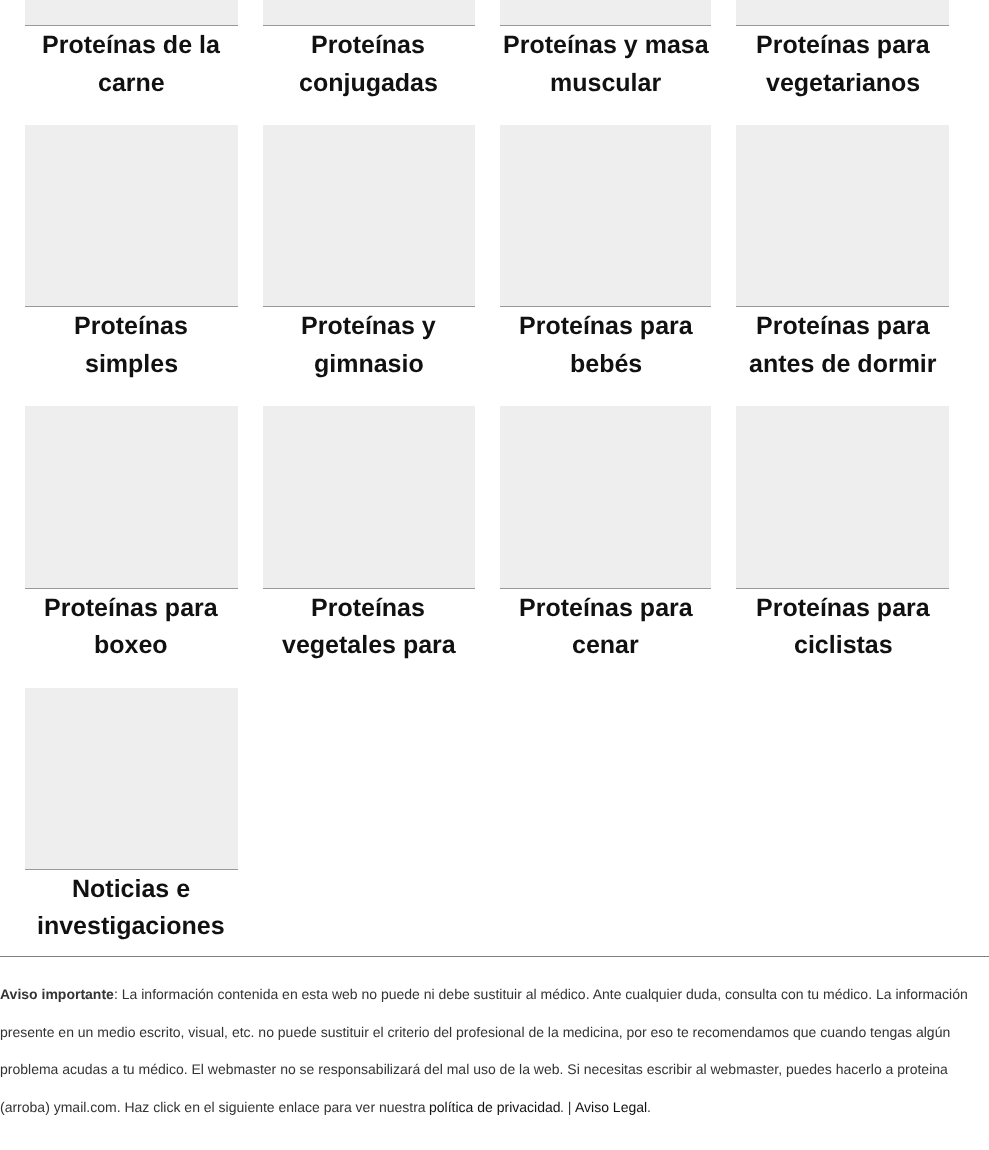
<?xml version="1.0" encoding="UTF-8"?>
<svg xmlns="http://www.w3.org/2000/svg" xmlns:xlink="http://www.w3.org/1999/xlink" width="989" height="1150">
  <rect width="100%" height="100%" fill="#ffffff" />
  <rect x="25" width="213" height="25" fill="#eeeeee" />
  <rect x="25" y="25" width="213" height="1" fill="#999999" />
  <rect x="263" width="212" height="25" fill="#eeeeee" />
  <rect x="263" y="25" width="212" height="1" fill="#999999" />
  <rect x="500" width="211" height="25" fill="#eeeeee" />
  <rect x="500" y="25" width="211" height="1" fill="#999999" />
  <rect x="736" width="213" height="25" fill="#eeeeee" />
  <rect x="736" y="25" width="213" height="1" fill="#999999" />
  <rect x="25" y="125" width="213" height="181" fill="#eeeeee" />
  <rect x="25" y="306" width="213" height="1" fill="#999999" />
  <rect x="263" y="125" width="212" height="181" fill="#eeeeee" />
  <rect x="263" y="306" width="212" height="1" fill="#999999" />
  <rect x="500" y="125" width="211" height="181" fill="#eeeeee" />
  <rect x="500" y="306" width="211" height="1" fill="#999999" />
  <rect x="736" y="125" width="213" height="181" fill="#eeeeee" />
  <rect x="736" y="306" width="213" height="1" fill="#999999" />
  <rect x="25" y="406" width="213" height="182" fill="#eeeeee" />
  <rect x="25" y="588" width="213" height="1" fill="#999999" />
  <rect x="263" y="406" width="212" height="182" fill="#eeeeee" />
  <rect x="263" y="588" width="212" height="1" fill="#999999" />
  <rect x="500" y="406" width="211" height="182" fill="#eeeeee" />
  <rect x="500" y="588" width="211" height="1" fill="#999999" />
  <rect x="736" y="406" width="213" height="182" fill="#eeeeee" />
  <rect x="736" y="588" width="213" height="1" fill="#999999" />
  <rect x="25" y="688" width="213" height="181" fill="#eeeeee" />
  <rect x="25" y="869" width="213" height="1" fill="#999999" />
  <rect y="956" width="989" height="1" fill="#808080" />
  <text x="42" y="53" style="font-family: Liberation Sans; font-size: 25px; font-weight: bold; fill: #111111">Proteínas de la</text>
  <text x="98" y="91" style="font-family: Liberation Sans; font-size: 25px; font-weight: bold; fill: #111111">carne</text>
  <text x="311" y="53" style="font-family: Liberation Sans; font-size: 25px; font-weight: bold; fill: #111111">Proteínas</text>
  <text x="299" y="91" style="font-family: Liberation Sans; font-size: 25px; font-weight: bold; fill: #111111">conjugadas</text>
  <text x="503" y="53" style="font-family: Liberation Sans; font-size: 25px; font-weight: bold; fill: #111111">Proteínas y masa</text>
  <text x="550" y="91" style="font-family: Liberation Sans; font-size: 25px; font-weight: bold; fill: #111111">muscular</text>
  <text x="756" y="53" style="font-family: Liberation Sans; font-size: 25px; font-weight: bold; fill: #111111">Proteínas para</text>
  <text x="766" y="91" style="font-family: Liberation Sans; font-size: 25px; font-weight: bold; fill: #111111">vegetarianos</text>
  <text x="74" y="334" style="font-family: Liberation Sans; font-size: 25px; font-weight: bold; fill: #111111">Proteínas</text>
  <text x="85" y="372" style="font-family: Liberation Sans; font-size: 25px; font-weight: bold; fill: #111111">simples</text>
  <text x="301" y="334" style="font-family: Liberation Sans; font-size: 25px; font-weight: bold; fill: #111111">Proteínas y</text>
  <text x="314" y="372" style="font-family: Liberation Sans; font-size: 25px; font-weight: bold; fill: #111111">gimnasio</text>
  <text x="519" y="334" style="font-family: Liberation Sans; font-size: 25px; font-weight: bold; fill: #111111">Proteínas para</text>
  <text x="570" y="372" style="font-family: Liberation Sans; font-size: 25px; font-weight: bold; fill: #111111">bebés</text>
  <text x="756" y="334" style="font-family: Liberation Sans; font-size: 25px; font-weight: bold; fill: #111111">Proteínas para</text>
  <text x="749" y="372" style="font-family: Liberation Sans; font-size: 25px; font-weight: bold; fill: #111111">antes de dormir</text>
  <text x="44" y="616" style="font-family: Liberation Sans; font-size: 25px; font-weight: bold; fill: #111111">Proteínas para</text>
  <text x="94" y="653" style="font-family: Liberation Sans; font-size: 25px; font-weight: bold; fill: #111111">boxeo</text>
  <text x="311" y="616" style="font-family: Liberation Sans; font-size: 25px; font-weight: bold; fill: #111111">Proteínas</text>
  <text x="282" y="653" style="font-family: Liberation Sans; font-size: 25px; font-weight: bold; fill: #111111">vegetales para</text>
  <text x="519" y="616" style="font-family: Liberation Sans; font-size: 25px; font-weight: bold; fill: #111111">Proteínas para</text>
  <text x="572" y="653" style="font-family: Liberation Sans; font-size: 25px; font-weight: bold; fill: #111111">cenar</text>
  <text x="756" y="616" style="font-family: Liberation Sans; font-size: 25px; font-weight: bold; fill: #111111">Proteínas para</text>
  <text x="794" y="653" style="font-family: Liberation Sans; font-size: 25px; font-weight: bold; fill: #111111">ciclistas</text>
  <text x="72" y="897" style="font-family: Liberation Sans; font-size: 25px; font-weight: bold; fill: #111111">Noticias e</text>
  <text x="37" y="934" style="font-family: Liberation Sans; font-size: 25px; font-weight: bold; fill: #111111">investigaciones</text>
  <text x="0" y="999" style="font-family: Liberation Sans; font-size: 14px; font-weight: bold; fill: #333333">Aviso importante</text>
  <text x="114" y="999" style="font-family: Liberation Sans; font-size: 14px; fill: #333333">: La información contenida en esta web no puede ni debe sustituir al médico. Ante cualquier duda, consulta con tu médico. La información</text>
  <text x="0" y="1037" style="font-family: Liberation Sans; font-size: 14px; fill: #333333">presente en un medio escrito, visual, etc. no puede sustituir el criterio del profesional de la medicina, por eso te recomendamos que cuando tengas algún</text>
  <text x="0" y="1074" style="font-family: Liberation Sans; font-size: 14px; fill: #333333">problema acudas a tu médico. El webmaster no se responsabilizará del mal uso de la web. Si necesitas escribir al webmaster, puedes hacerlo a proteina</text>
  <text x="0" y="1112" style="font-family: Liberation Sans; font-size: 14px; fill: #333333">(arroba) ymail.com. Haz click en el siguiente enlace para ver nuestra</text>
  <text x="429" y="1112" style="font-family: Liberation Sans; font-size: 14px; fill: #111111">política de privacidad</text>
  <text x="560" y="1112" style="font-family: Liberation Sans; font-size: 14px; fill: #333333">. |</text>
  <text x="575" y="1112" style="font-family: Liberation Sans; font-size: 14px; fill: #111111">Aviso Legal</text>
  <text x="647" y="1112" style="font-family: Liberation Sans; font-size: 14px; fill: #333333">.</text>
</svg>
